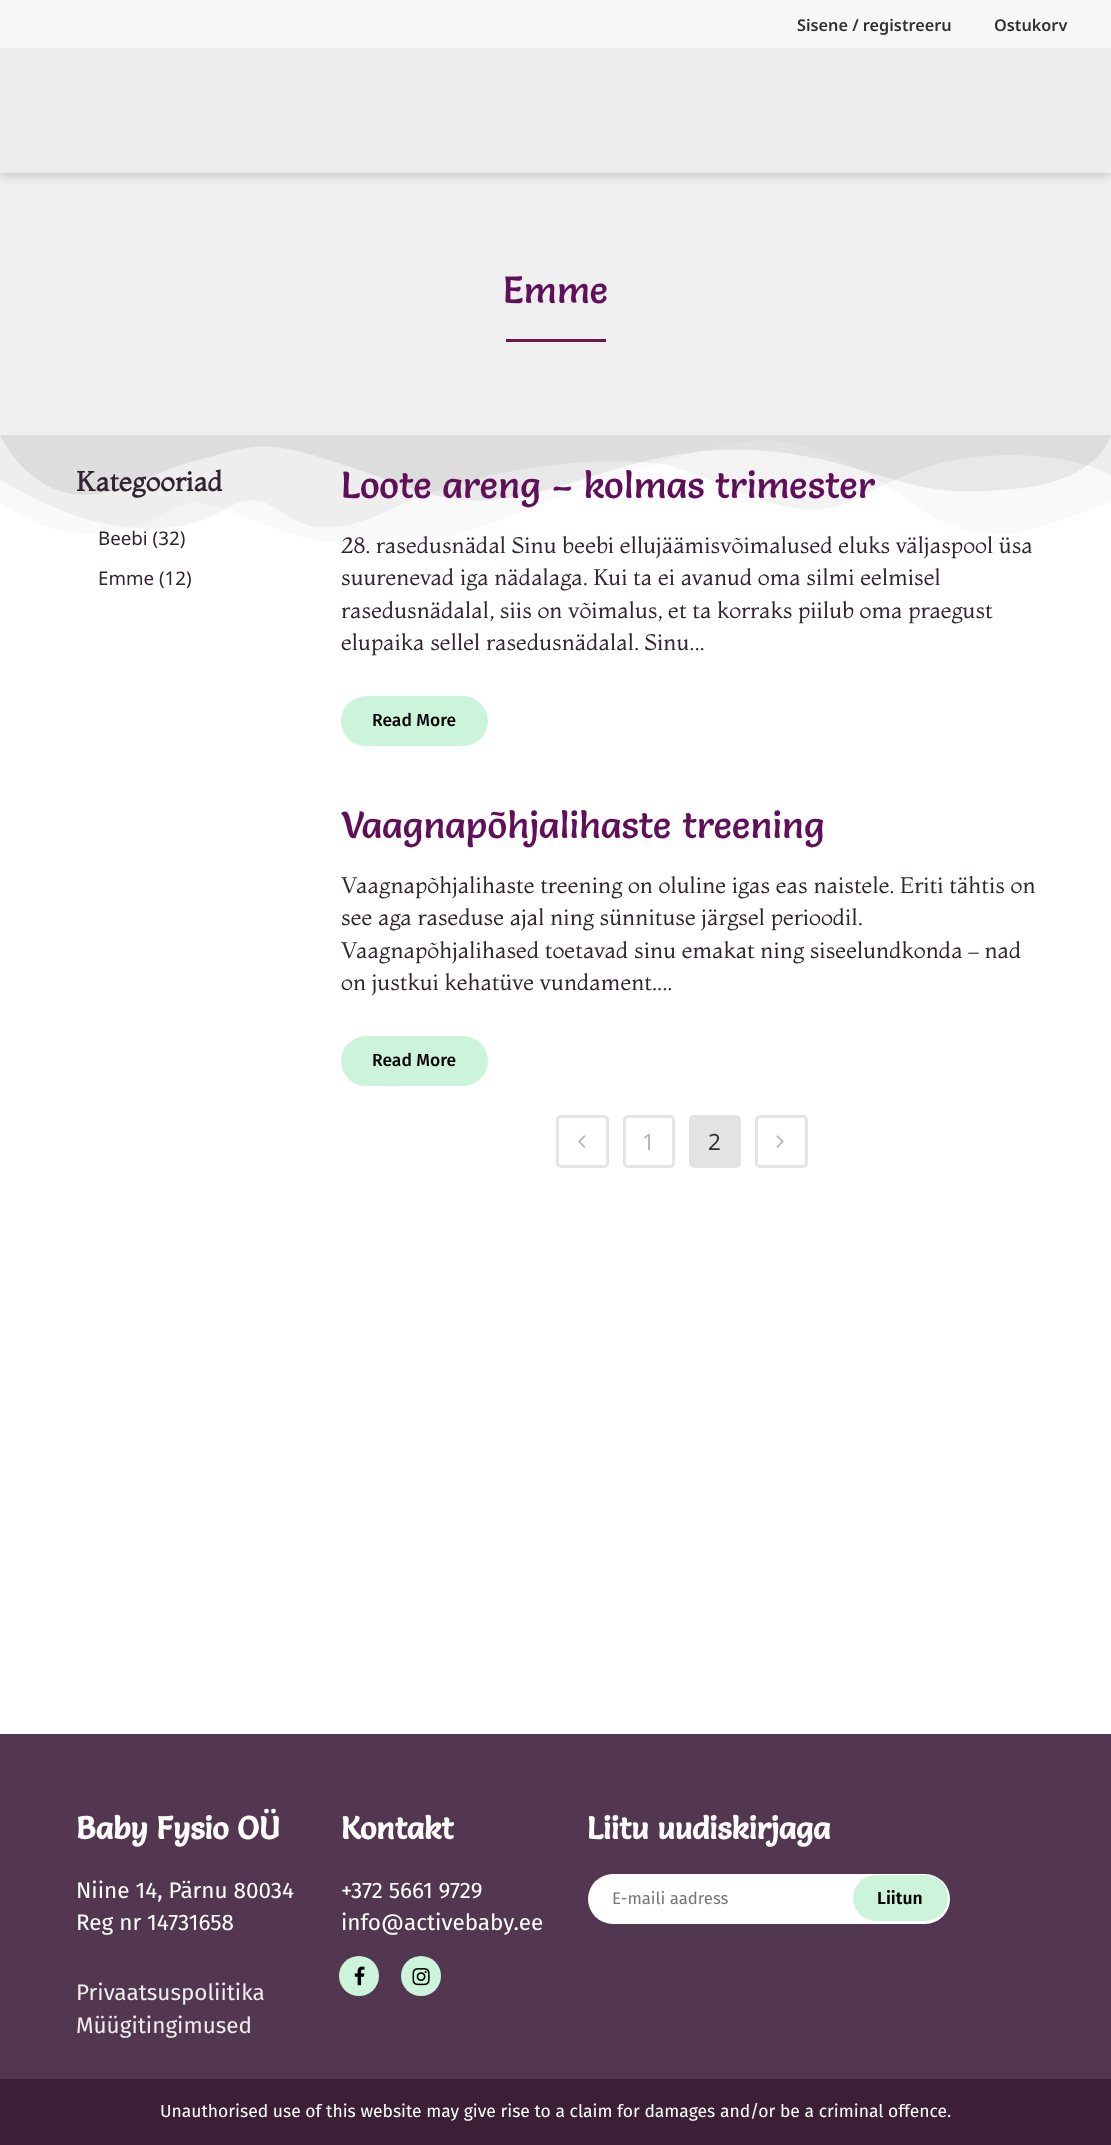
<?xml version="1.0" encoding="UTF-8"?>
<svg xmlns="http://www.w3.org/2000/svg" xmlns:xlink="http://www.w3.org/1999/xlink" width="1111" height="2145">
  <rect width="100%" height="100%" fill="#ffffff" />
  <rect y="173" width="1111" height="262" fill="#efefef" />
  <rect width="1111" height="173" fill="#000000" fill-opacity="0.26" filter="blur(6px)" />
  <rect width="1111" height="48" fill="#f7f7f7" />
  <rect y="48" width="1111" height="125" fill="#ededed" />
  <rect x="506" y="339" width="100" height="3" fill="#6d1748" />
  <image x="0" y="435" width="1111" height="111" xlink:href="image1.png" />
  <rect x="341" y="696" width="147" height="50" rx="25" fill="#cbf4da" />
  <rect x="341" y="1036" width="147" height="50" rx="25" fill="#cbf4da" />
  <rect x="557.5" y="1116.5" width="50" height="50" rx="3.5" fill="none" stroke="#e5e5e5" stroke-width="3" />
  <image x="578" y="1135" width="8" height="13" xlink:href="image2.png" />
  <rect x="624.5" y="1116.5" width="49" height="50" rx="3.5" fill="none" stroke="#e5e5e5" stroke-width="3" />
  <rect x="690.5" y="1116.5" width="49" height="50" rx="3.5" fill="#e3e3e3" stroke="#e3e3e3" stroke-width="3" />
  <rect x="756.5" y="1116.5" width="50" height="50" rx="3.5" fill="none" stroke="#e5e5e5" stroke-width="3" />
  <image x="776" y="1135" width="8" height="13" xlink:href="image3.png" />
  <rect y="1734" width="1111" height="345" fill="#533750" />
  <circle cx="359" cy="1976" r="20" fill="#cbf4da" />
  <image x="354" y="1966" width="11" height="20" xlink:href="image4.png" />
  <circle cx="421" cy="1976" r="20" fill="#cbf4da" />
  <image x="412" y="1968" width="18" height="18" xlink:href="image5.png" />
  <rect x="588" y="1874" width="362" height="50" rx="25" fill="#ffffff" />
  <rect x="853" y="1875" width="95" height="46" rx="23" fill="#cbf4da" />
  <rect y="2079" width="1111" height="66" fill="#3a1f36" />
  <text x="797" y="31" style="font-family: Noto Sans; font-size: 16.25px; font-weight: 600; fill: #303030">Sisene / registreeru</text>
  <text x="994" y="31" style="font-family: Noto Sans; font-size: 16.25px; font-weight: 600; fill: #303030">Ostukorv</text>
  <text x="503" y="303" style="font-family: Salsa; font-size: 37.5px; fill: #601059">Emme</text>
  <text x="76" y="491" style="font-family: Montaga; font-size: 27.5px; font-weight: bold; fill: #312430">Kategooriad</text>
  <text x="98" y="545" style="font-family: Noto Sans; font-size: 18.75px; fill: #312430">Beebi (32)</text>
  <text x="98" y="585" style="font-family: Noto Sans; font-size: 18.75px; fill: #312430">Emme (12)</text>
  <text x="341" y="498" style="font-family: Salsa; font-size: 37.5px; fill: #601059">Loote areng – kolmas trimester</text>
  <text x="341" y="553" style="font-family: Montaga; font-size: 22.5px; fill: #312430">28. rasedusnädal Sinu beebi ellujäämisvõimalused eluks väljaspool üsa</text>
  <text x="341" y="585" style="font-family: Montaga; font-size: 22.5px; fill: #312430">suurenevad iga nädalaga. Kui ta ei avanud oma silmi eelmisel</text>
  <text x="341" y="618" style="font-family: Montaga; font-size: 22.5px; fill: #312430">rasedusnädalal, siis on võimalus, et ta korraks piilub oma praegust</text>
  <text x="341" y="650" style="font-family: Montaga; font-size: 22.5px; fill: #312430">elupaika sellel rasedusnädalal. Sinu...</text>
  <text x="372" y="726" style="font-family: Fira Sans; font-size: 17.5px; font-weight: 500; fill: #000000">Read More</text>
  <text x="341" y="838" style="font-family: Salsa; font-size: 37.5px; fill: #601059">Vaagnapõhjalihaste treening</text>
  <text x="341" y="893" style="font-family: Montaga; font-size: 22.5px; fill: #312430">Vaagnapõhjalihaste treening on oluline igas eas naistele. Eriti tähtis on</text>
  <text x="341" y="925" style="font-family: Montaga; font-size: 22.5px; fill: #312430">see aga raseduse ajal ning sünnituse järgsel perioodil.</text>
  <text x="341" y="958" style="font-family: Montaga; font-size: 22.5px; fill: #312430">Vaagnapõhjalihased toetavad sinu emakat ning siseelundkonda – nad</text>
  <text x="341" y="990" style="font-family: Montaga; font-size: 22.5px; fill: #312430">on justkui kehatüve vundament....</text>
  <text x="372" y="1066" style="font-family: Fira Sans; font-size: 17.5px; font-weight: 500; fill: #000000">Read More</text>
  <text x="642" y="1150" style="font-family: Noto Sans; font-size: 22.5px; fill: #b4b4b4">1</text>
  <text x="708" y="1150" style="font-family: Noto Sans; font-size: 22.5px; fill: #303030">2</text>
  <text x="76" y="1839" style="font-family: Salsa; font-size: 31.25px; font-weight: bold; fill: #ffffff">Baby Fysio OÜ</text>
  <text x="76" y="1898" style="font-family: Fira Sans; font-size: 22.5px; fill: #ffffff">Niine 14, Pärnu 80034</text>
  <text x="76" y="1930" style="font-family: Fira Sans; font-size: 22.5px; fill: #ffffff">Reg nr 14731658</text>
  <text x="76" y="2000" style="font-family: Fira Sans; font-size: 22.5px; fill: #ededed">Privaatsuspoliitika</text>
  <text x="76" y="2033" style="font-family: Fira Sans; font-size: 22.5px; fill: #ededed">Müügitingimused</text>
  <text x="341" y="1839" style="font-family: Salsa; font-size: 31.25px; font-weight: bold; fill: #ffffff">Kontakt</text>
  <text x="341" y="1898" style="font-family: Fira Sans; font-size: 22.5px; fill: #ffffff">+372 5661 9729</text>
  <text x="341" y="1930" style="font-family: Fira Sans; font-size: 22.5px; fill: #ffffff">info@activebaby.ee</text>
  <text x="587" y="1839" style="font-family: Salsa; font-size: 31.25px; font-weight: bold; fill: #ffffff">Liitu uudiskirjaga</text>
  <text x="612" y="1904" style="font-family: Fira Sans; font-size: 16.75px; fill: #757575">E-maili aadress</text>
  <text x="877" y="1904" style="font-family: Fira Sans; font-size: 17.5px; font-weight: 600; fill: #000000">Liitun</text>
  <text x="160" y="2117" style="font-family: Fira Sans; font-size: 17.5px; fill: #ffffff">Unauthorised use of this website may give rise to a claim for damages and/or be a criminal offence.</text>
</svg>
